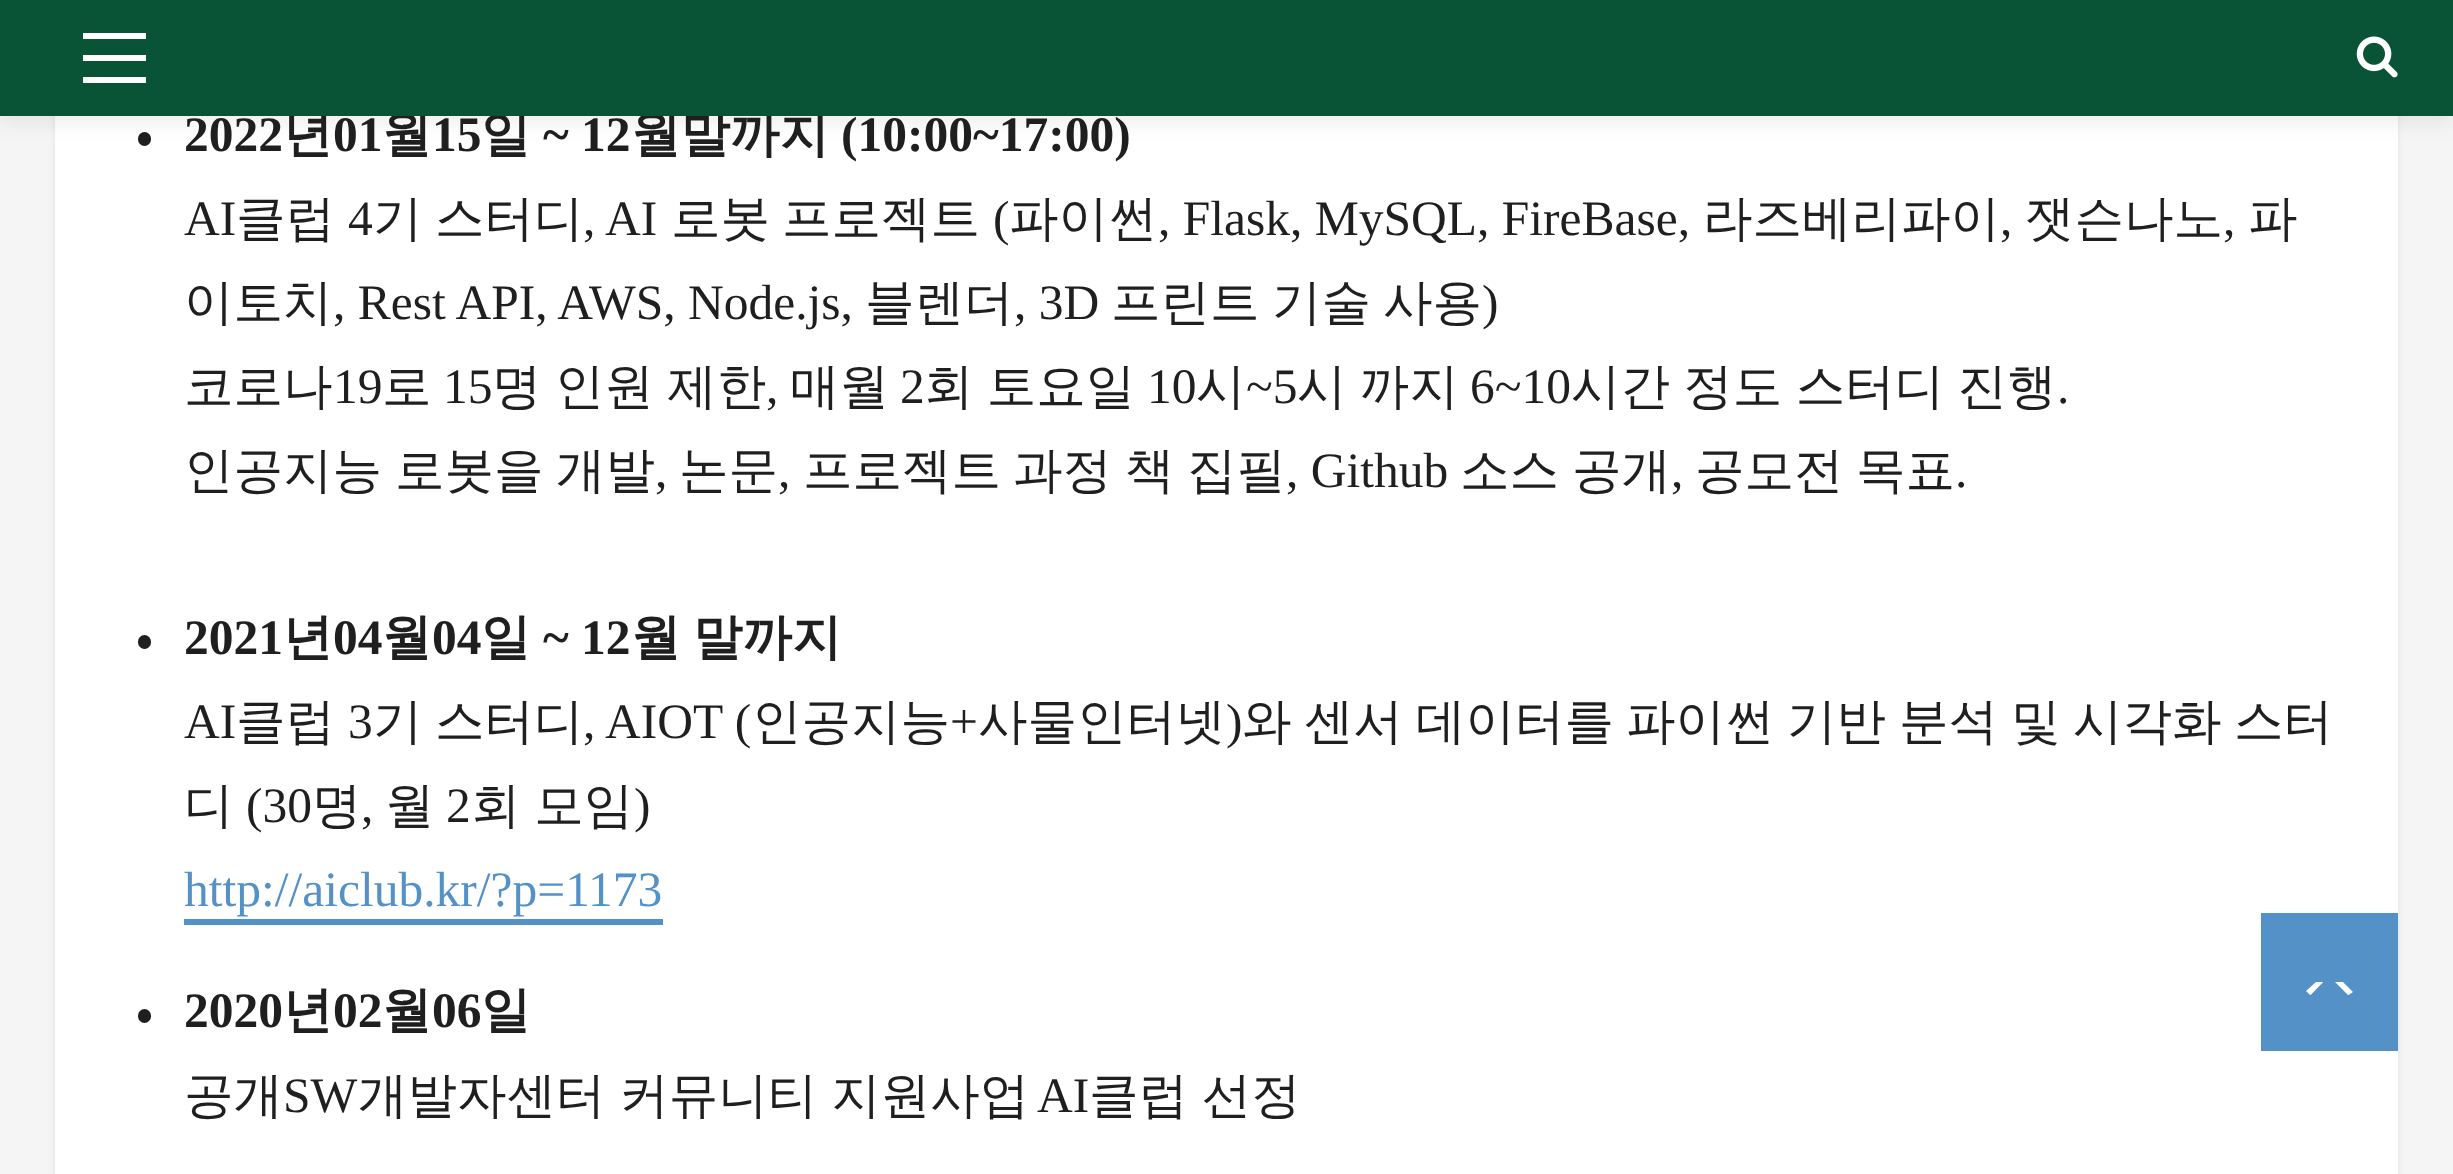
<?xml version="1.0" encoding="UTF-8"?>
<svg xmlns="http://www.w3.org/2000/svg" xmlns:xlink="http://www.w3.org/1999/xlink" width="2453" height="1174">
  <rect width="100%" height="100%" fill="#f5f5f5" />
  <rect x="55" y="-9" width="2343" height="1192" fill="#000000" fill-opacity="0.08" filter="blur(3px)" />
  <rect x="55" y="116" width="2343" height="1058" fill="#ffffff" />
  <rect x="138" y="132" width="13" height="14" rx="6.5" fill="#1f1f1f" />
  <rect y="6" width="2453" height="115" fill="#000000" fill-opacity="0.08" filter="blur(11px)" />
  <rect x="138" y="635" width="13" height="14" rx="6.5" fill="#1f1f1f" />
  <rect x="184" y="919" width="479" height="6" fill="#5391c6" />
  <rect x="138" y="1009" width="13" height="14" rx="6.5" fill="#1f1f1f" />
  <rect x="2261" y="913" width="137" height="138" fill="#5391c6" />
  <path d="M 2312 996 c -2 -1 -4 -3 -6 -5 l 10 -9 h 27 l 10 10 c -2 1 -4 3 -6 4 z" fill="#ffffff" />
  <path d="M 2357 1004 h -55 l 27 -28 z" fill="#5391c6" />
  <text x="184" y="151" style="font-family: Liberation Serif; font-size: 49.5px; font-weight: bold; fill: #1f1f1f">2022</text>
  <text x="283" y="151" style="font-family: WenQuanYi Zen Hei; font-size: 49.5px; font-weight: bold; fill: #1f1f1f">년</text>
  <text x="333" y="151" style="font-family: Liberation Serif; font-size: 49.5px; font-weight: bold; fill: #1f1f1f">01</text>
  <text x="382" y="151" style="font-family: WenQuanYi Zen Hei; font-size: 49.5px; font-weight: bold; fill: #1f1f1f">월</text>
  <text x="432" y="151" style="font-family: Liberation Serif; font-size: 49.5px; font-weight: bold; fill: #1f1f1f">15</text>
  <text x="481" y="151" style="font-family: WenQuanYi Zen Hei; font-size: 49.5px; font-weight: bold; fill: #1f1f1f">일</text>
  <text x="543" y="151" style="font-family: Liberation Serif; font-size: 49.5px; font-weight: bold; fill: #1f1f1f">~ 12</text>
  <text x="631" y="151" style="font-family: WenQuanYi Zen Hei; font-size: 49.5px; font-weight: bold; fill: #1f1f1f">월말까지</text>
  <rect width="2453" height="116" fill="#095437" />
  <image x="2356" y="36" width="42" height="42" xlink:href="image1.png" />
  <rect x="83" y="77" width="63" height="6" fill="#ffffff" />
  <rect x="83" y="33" width="63" height="6" fill="#ffffff" />
  <rect x="83" y="55" width="63" height="6" fill="#ffffff" />
  <text x="841" y="151" style="font-family: Liberation Serif; font-size: 49.5px; font-weight: bold; fill: #1f1f1f">(10:00~17:00)</text>
  <text x="184" y="235" style="font-family: Liberation Serif; font-size: 49.5px; fill: #1f1f1f">AI</text>
  <text x="236" y="235" style="font-family: WenQuanYi Zen Hei; font-size: 49.5px; font-weight: 500; fill: #1f1f1f">클럽</text>
  <text x="348" y="235" style="font-family: Liberation Serif; font-size: 49.5px; fill: #1f1f1f">4</text>
  <text x="373" y="235" style="font-family: WenQuanYi Zen Hei; font-size: 49.5px; font-weight: 500; fill: #1f1f1f">기</text>
  <text x="435" y="235" style="font-family: WenQuanYi Zen Hei; font-size: 49.5px; font-weight: 500; fill: #1f1f1f">스터디</text>
  <text x="583" y="235" style="font-family: Liberation Serif; font-size: 49.5px; fill: #1f1f1f">, AI</text>
  <text x="671" y="235" style="font-family: WenQuanYi Zen Hei; font-size: 49.5px; font-weight: 500; fill: #1f1f1f">로봇</text>
  <text x="782" y="235" style="font-family: WenQuanYi Zen Hei; font-size: 49.5px; font-weight: 500; fill: #1f1f1f">프로젝트</text>
  <text x="993" y="235" style="font-family: Liberation Serif; font-size: 49.5px; fill: #1f1f1f">(</text>
  <text x="1009" y="235" style="font-family: WenQuanYi Zen Hei; font-size: 49.5px; font-weight: 500; fill: #1f1f1f">파이썬</text>
  <text x="1158" y="235" style="font-family: Liberation Serif; font-size: 49.5px; fill: #1f1f1f">, Flask, MySQL, FireBase,</text>
  <text x="1703" y="235" style="font-family: WenQuanYi Zen Hei; font-size: 49.5px; font-weight: 500; fill: #1f1f1f">라즈베리파이</text>
  <text x="2000" y="235" style="font-family: Liberation Serif; font-size: 49.5px; fill: #1f1f1f">,</text>
  <text x="2025" y="235" style="font-family: WenQuanYi Zen Hei; font-size: 49.5px; font-weight: 500; fill: #1f1f1f">잿슨나노</text>
  <text x="2223" y="235" style="font-family: Liberation Serif; font-size: 49.5px; fill: #1f1f1f">,</text>
  <text x="2248" y="235" style="font-family: WenQuanYi Zen Hei; font-size: 49.5px; font-weight: 500; fill: #1f1f1f">파</text>
  <text x="184" y="319" style="font-family: WenQuanYi Zen Hei; font-size: 49.5px; font-weight: 500; fill: #1f1f1f">이토치</text>
  <text x="333" y="319" style="font-family: Liberation Serif; font-size: 49.5px; fill: #1f1f1f">, Rest API, AWS, Node.js,</text>
  <text x="865" y="319" style="font-family: WenQuanYi Zen Hei; font-size: 49.5px; font-weight: 500; fill: #1f1f1f">블렌더</text>
  <text x="1014" y="319" style="font-family: Liberation Serif; font-size: 49.5px; fill: #1f1f1f">, 3D</text>
  <text x="1111" y="319" style="font-family: WenQuanYi Zen Hei; font-size: 49.5px; font-weight: 500; fill: #1f1f1f">프린트</text>
  <text x="1272" y="319" style="font-family: WenQuanYi Zen Hei; font-size: 49.5px; font-weight: 500; fill: #1f1f1f">기술</text>
  <text x="1383" y="319" style="font-family: WenQuanYi Zen Hei; font-size: 49.5px; font-weight: 500; fill: #1f1f1f">사용</text>
  <text x="1482" y="319" style="font-family: Liberation Serif; font-size: 49.5px; fill: #1f1f1f">)</text>
  <text x="184" y="403" style="font-family: WenQuanYi Zen Hei; font-size: 49.5px; font-weight: 500; fill: #1f1f1f">코로나</text>
  <text x="333" y="403" style="font-family: Liberation Serif; font-size: 49.5px; fill: #1f1f1f">19</text>
  <text x="382" y="403" style="font-family: WenQuanYi Zen Hei; font-size: 49.5px; font-weight: 500; fill: #1f1f1f">로</text>
  <text x="443" y="403" style="font-family: Liberation Serif; font-size: 49.5px; fill: #1f1f1f">15</text>
  <text x="492" y="403" word-spacing="-1.5" style="font-family: WenQuanYi Zen Hei; font-size: 49.5px; font-weight: 500; fill: #1f1f1f">명 인원 제한</text>
  <text x="766" y="403" style="font-family: Liberation Serif; font-size: 49.5px; fill: #1f1f1f">,</text>
  <text x="790" y="403" style="font-family: WenQuanYi Zen Hei; font-size: 49.5px; font-weight: 500; fill: #1f1f1f">매월</text>
  <text x="900" y="403" style="font-family: Liberation Serif; font-size: 49.5px; fill: #1f1f1f">2</text>
  <text x="924" y="403" word-spacing="-1.5" style="font-family: WenQuanYi Zen Hei; font-size: 49.5px; font-weight: 500; fill: #1f1f1f">회 토요일</text>
  <text x="1147" y="403" style="font-family: Liberation Serif; font-size: 49.5px; fill: #1f1f1f">10</text>
  <text x="1196" y="403" style="font-family: WenQuanYi Zen Hei; font-size: 49.5px; font-weight: 500; fill: #1f1f1f">시</text>
  <text x="1246" y="403" style="font-family: Liberation Serif; font-size: 49.5px; fill: #1f1f1f">~5</text>
  <text x="1297" y="403" word-spacing="-1.5" style="font-family: WenQuanYi Zen Hei; font-size: 49.5px; font-weight: 500; fill: #1f1f1f">시 까지</text>
  <text x="1470" y="403" style="font-family: Liberation Serif; font-size: 49.5px; fill: #1f1f1f">6~10</text>
  <text x="1571" y="403" word-spacing="-1.5" style="font-family: WenQuanYi Zen Hei; font-size: 49.5px; font-weight: 500; fill: #1f1f1f">시간 정도 스터디 진행</text>
  <text x="2057" y="403" style="font-family: Liberation Serif; font-size: 49.5px; fill: #1f1f1f">.</text>
  <text x="184" y="487" style="font-family: WenQuanYi Zen Hei; font-size: 49.5px; font-weight: 500; fill: #1f1f1f">인공지능</text>
  <text x="395" y="487" style="font-family: WenQuanYi Zen Hei; font-size: 49.5px; font-weight: 500; fill: #1f1f1f">로봇을</text>
  <text x="556" y="487" style="font-family: WenQuanYi Zen Hei; font-size: 49.5px; font-weight: 500; fill: #1f1f1f">개발</text>
  <text x="655" y="487" style="font-family: Liberation Serif; font-size: 49.5px; fill: #1f1f1f">,</text>
  <text x="679" y="487" style="font-family: WenQuanYi Zen Hei; font-size: 49.5px; font-weight: 500; fill: #1f1f1f">논문</text>
  <text x="778" y="487" style="font-family: Liberation Serif; font-size: 49.5px; fill: #1f1f1f">,</text>
  <text x="803" y="487" style="font-family: WenQuanYi Zen Hei; font-size: 49.5px; font-weight: 500; fill: #1f1f1f">프로젝트</text>
  <text x="1013" y="487" style="font-family: WenQuanYi Zen Hei; font-size: 49.5px; font-weight: 500; fill: #1f1f1f">과정</text>
  <text x="1125" y="487" style="font-family: WenQuanYi Zen Hei; font-size: 49.5px; font-weight: 500; fill: #1f1f1f">책</text>
  <text x="1187" y="487" style="font-family: WenQuanYi Zen Hei; font-size: 49.5px; font-weight: 500; fill: #1f1f1f">집필</text>
  <text x="1286" y="487" style="font-family: Liberation Serif; font-size: 49.5px; fill: #1f1f1f">, Github</text>
  <text x="1460" y="487" style="font-family: WenQuanYi Zen Hei; font-size: 49.5px; font-weight: 500; fill: #1f1f1f">소스</text>
  <text x="1572" y="487" style="font-family: WenQuanYi Zen Hei; font-size: 49.5px; font-weight: 500; fill: #1f1f1f">공개</text>
  <text x="1671" y="487" style="font-family: Liberation Serif; font-size: 49.5px; fill: #1f1f1f">,</text>
  <text x="1695" y="487" style="font-family: WenQuanYi Zen Hei; font-size: 49.5px; font-weight: 500; fill: #1f1f1f">공모전</text>
  <text x="1856" y="487" style="font-family: WenQuanYi Zen Hei; font-size: 49.5px; font-weight: 500; fill: #1f1f1f">목표</text>
  <text x="1955" y="487" style="font-family: Liberation Serif; font-size: 49.5px; fill: #1f1f1f">.</text>
  <text x="184" y="654" style="font-family: Liberation Serif; font-size: 49.5px; font-weight: bold; fill: #1f1f1f">2021</text>
  <text x="283" y="654" style="font-family: WenQuanYi Zen Hei; font-size: 49.5px; font-weight: bold; fill: #1f1f1f">년</text>
  <text x="333" y="654" style="font-family: Liberation Serif; font-size: 49.5px; font-weight: bold; fill: #1f1f1f">04</text>
  <text x="382" y="654" style="font-family: WenQuanYi Zen Hei; font-size: 49.5px; font-weight: bold; fill: #1f1f1f">월</text>
  <text x="432" y="654" style="font-family: Liberation Serif; font-size: 49.5px; font-weight: bold; fill: #1f1f1f">04</text>
  <text x="481" y="654" style="font-family: WenQuanYi Zen Hei; font-size: 49.5px; font-weight: bold; fill: #1f1f1f">일</text>
  <text x="543" y="654" style="font-family: Liberation Serif; font-size: 49.5px; font-weight: bold; fill: #1f1f1f">~ 12</text>
  <text x="631" y="654" style="font-family: WenQuanYi Zen Hei; font-size: 49.5px; font-weight: bold; fill: #1f1f1f">월</text>
  <text x="693" y="654" style="font-family: WenQuanYi Zen Hei; font-size: 49.5px; font-weight: bold; fill: #1f1f1f">말까지</text>
  <text x="184" y="738" style="font-family: Liberation Serif; font-size: 49.5px; fill: #1f1f1f">AI</text>
  <text x="236" y="738" style="font-family: WenQuanYi Zen Hei; font-size: 49.5px; font-weight: 500; fill: #1f1f1f">클럽</text>
  <text x="348" y="738" style="font-family: Liberation Serif; font-size: 49.5px; fill: #1f1f1f">3</text>
  <text x="373" y="738" style="font-family: WenQuanYi Zen Hei; font-size: 49.5px; font-weight: 500; fill: #1f1f1f">기</text>
  <text x="435" y="738" style="font-family: WenQuanYi Zen Hei; font-size: 49.5px; font-weight: 500; fill: #1f1f1f">스터디</text>
  <text x="583" y="738" style="font-family: Liberation Serif; font-size: 49.5px; fill: #1f1f1f">, AIOT (</text>
  <text x="752" y="738" style="font-family: WenQuanYi Zen Hei; font-size: 49.5px; font-weight: 500; fill: #1f1f1f">인공지능</text>
  <text x="950" y="738" style="font-family: Liberation Serif; font-size: 49.5px; fill: #1f1f1f">+</text>
  <text x="978" y="738" style="font-family: WenQuanYi Zen Hei; font-size: 49.5px; font-weight: 500; fill: #1f1f1f">사물인터넷</text>
  <text x="1226" y="738" style="font-family: Liberation Serif; font-size: 49.5px; fill: #1f1f1f">)</text>
  <text x="1242" y="738" style="font-family: WenQuanYi Zen Hei; font-size: 49.5px; font-weight: 500; fill: #1f1f1f">와</text>
  <text x="1304" y="738" style="font-family: WenQuanYi Zen Hei; font-size: 49.5px; font-weight: 500; fill: #1f1f1f">센서</text>
  <text x="1416" y="738" style="font-family: WenQuanYi Zen Hei; font-size: 49.5px; font-weight: 500; fill: #1f1f1f">데이터를</text>
  <text x="1626" y="738" style="font-family: WenQuanYi Zen Hei; font-size: 49.5px; font-weight: 500; fill: #1f1f1f">파이썬</text>
  <text x="1787" y="738" style="font-family: WenQuanYi Zen Hei; font-size: 49.5px; font-weight: 500; fill: #1f1f1f">기반</text>
  <text x="1899" y="738" style="font-family: WenQuanYi Zen Hei; font-size: 49.5px; font-weight: 500; fill: #1f1f1f">분석</text>
  <text x="2011" y="738" style="font-family: WenQuanYi Zen Hei; font-size: 49.5px; font-weight: 500; fill: #1f1f1f">및</text>
  <text x="2073" y="738" style="font-family: WenQuanYi Zen Hei; font-size: 49.5px; font-weight: 500; fill: #1f1f1f">시각화</text>
  <text x="2234" y="738" style="font-family: WenQuanYi Zen Hei; font-size: 49.5px; font-weight: 500; fill: #1f1f1f">스터</text>
  <text x="184" y="822" style="font-family: WenQuanYi Zen Hei; font-size: 49.5px; font-weight: 500; fill: #1f1f1f">디</text>
  <text x="246" y="822" style="font-family: Liberation Serif; font-size: 49.5px; fill: #1f1f1f">(30</text>
  <text x="312" y="822" style="font-family: WenQuanYi Zen Hei; font-size: 49.5px; font-weight: 500; fill: #1f1f1f">명</text>
  <text x="361" y="822" style="font-family: Liberation Serif; font-size: 49.5px; fill: #1f1f1f">,</text>
  <text x="385" y="822" style="font-family: WenQuanYi Zen Hei; font-size: 49.5px; font-weight: 500; fill: #1f1f1f">월</text>
  <text x="446" y="822" style="font-family: Liberation Serif; font-size: 49.5px; fill: #1f1f1f">2</text>
  <text x="471" y="822" word-spacing="-1" style="font-family: WenQuanYi Zen Hei; font-size: 49.5px; font-weight: 500; fill: #1f1f1f">회 모임</text>
  <text x="634" y="822" style="font-family: Liberation Serif; font-size: 49.5px; fill: #1f1f1f">)</text>
  <text x="184" y="906" style="font-family: Liberation Serif; font-size: 49.5px; fill: #5391c6">http://aiclub.kr/?p=1173</text>
  <text x="184" y="1027" style="font-family: Liberation Serif; font-size: 49.5px; font-weight: bold; fill: #1f1f1f">2020</text>
  <text x="283" y="1027" style="font-family: WenQuanYi Zen Hei; font-size: 49.5px; font-weight: bold; fill: #1f1f1f">년</text>
  <text x="333" y="1027" style="font-family: Liberation Serif; font-size: 49.5px; font-weight: bold; fill: #1f1f1f">02</text>
  <text x="382" y="1027" style="font-family: WenQuanYi Zen Hei; font-size: 49.5px; font-weight: bold; fill: #1f1f1f">월</text>
  <text x="432" y="1027" style="font-family: Liberation Serif; font-size: 49.5px; font-weight: bold; fill: #1f1f1f">06</text>
  <text x="481" y="1027" style="font-family: WenQuanYi Zen Hei; font-size: 49.5px; font-weight: bold; fill: #1f1f1f">일</text>
  <text x="184" y="1112" style="font-family: WenQuanYi Zen Hei; font-size: 49.5px; font-weight: 500; fill: #1f1f1f">공개</text>
  <text x="283" y="1112" style="font-family: Liberation Serif; font-size: 49.5px; fill: #1f1f1f">SW</text>
  <text x="358" y="1112" word-spacing="-1" style="font-family: WenQuanYi Zen Hei; font-size: 49.5px; font-weight: 500; fill: #1f1f1f">개발자센터 커뮤니티 지원사업</text>
  <text x="1037" y="1112" style="font-family: Liberation Serif; font-size: 49.5px; fill: #1f1f1f">AI</text>
  <text x="1089" y="1112" word-spacing="-1" style="font-family: WenQuanYi Zen Hei; font-size: 49.5px; font-weight: 500; fill: #1f1f1f">클럽 선정</text>
</svg>
